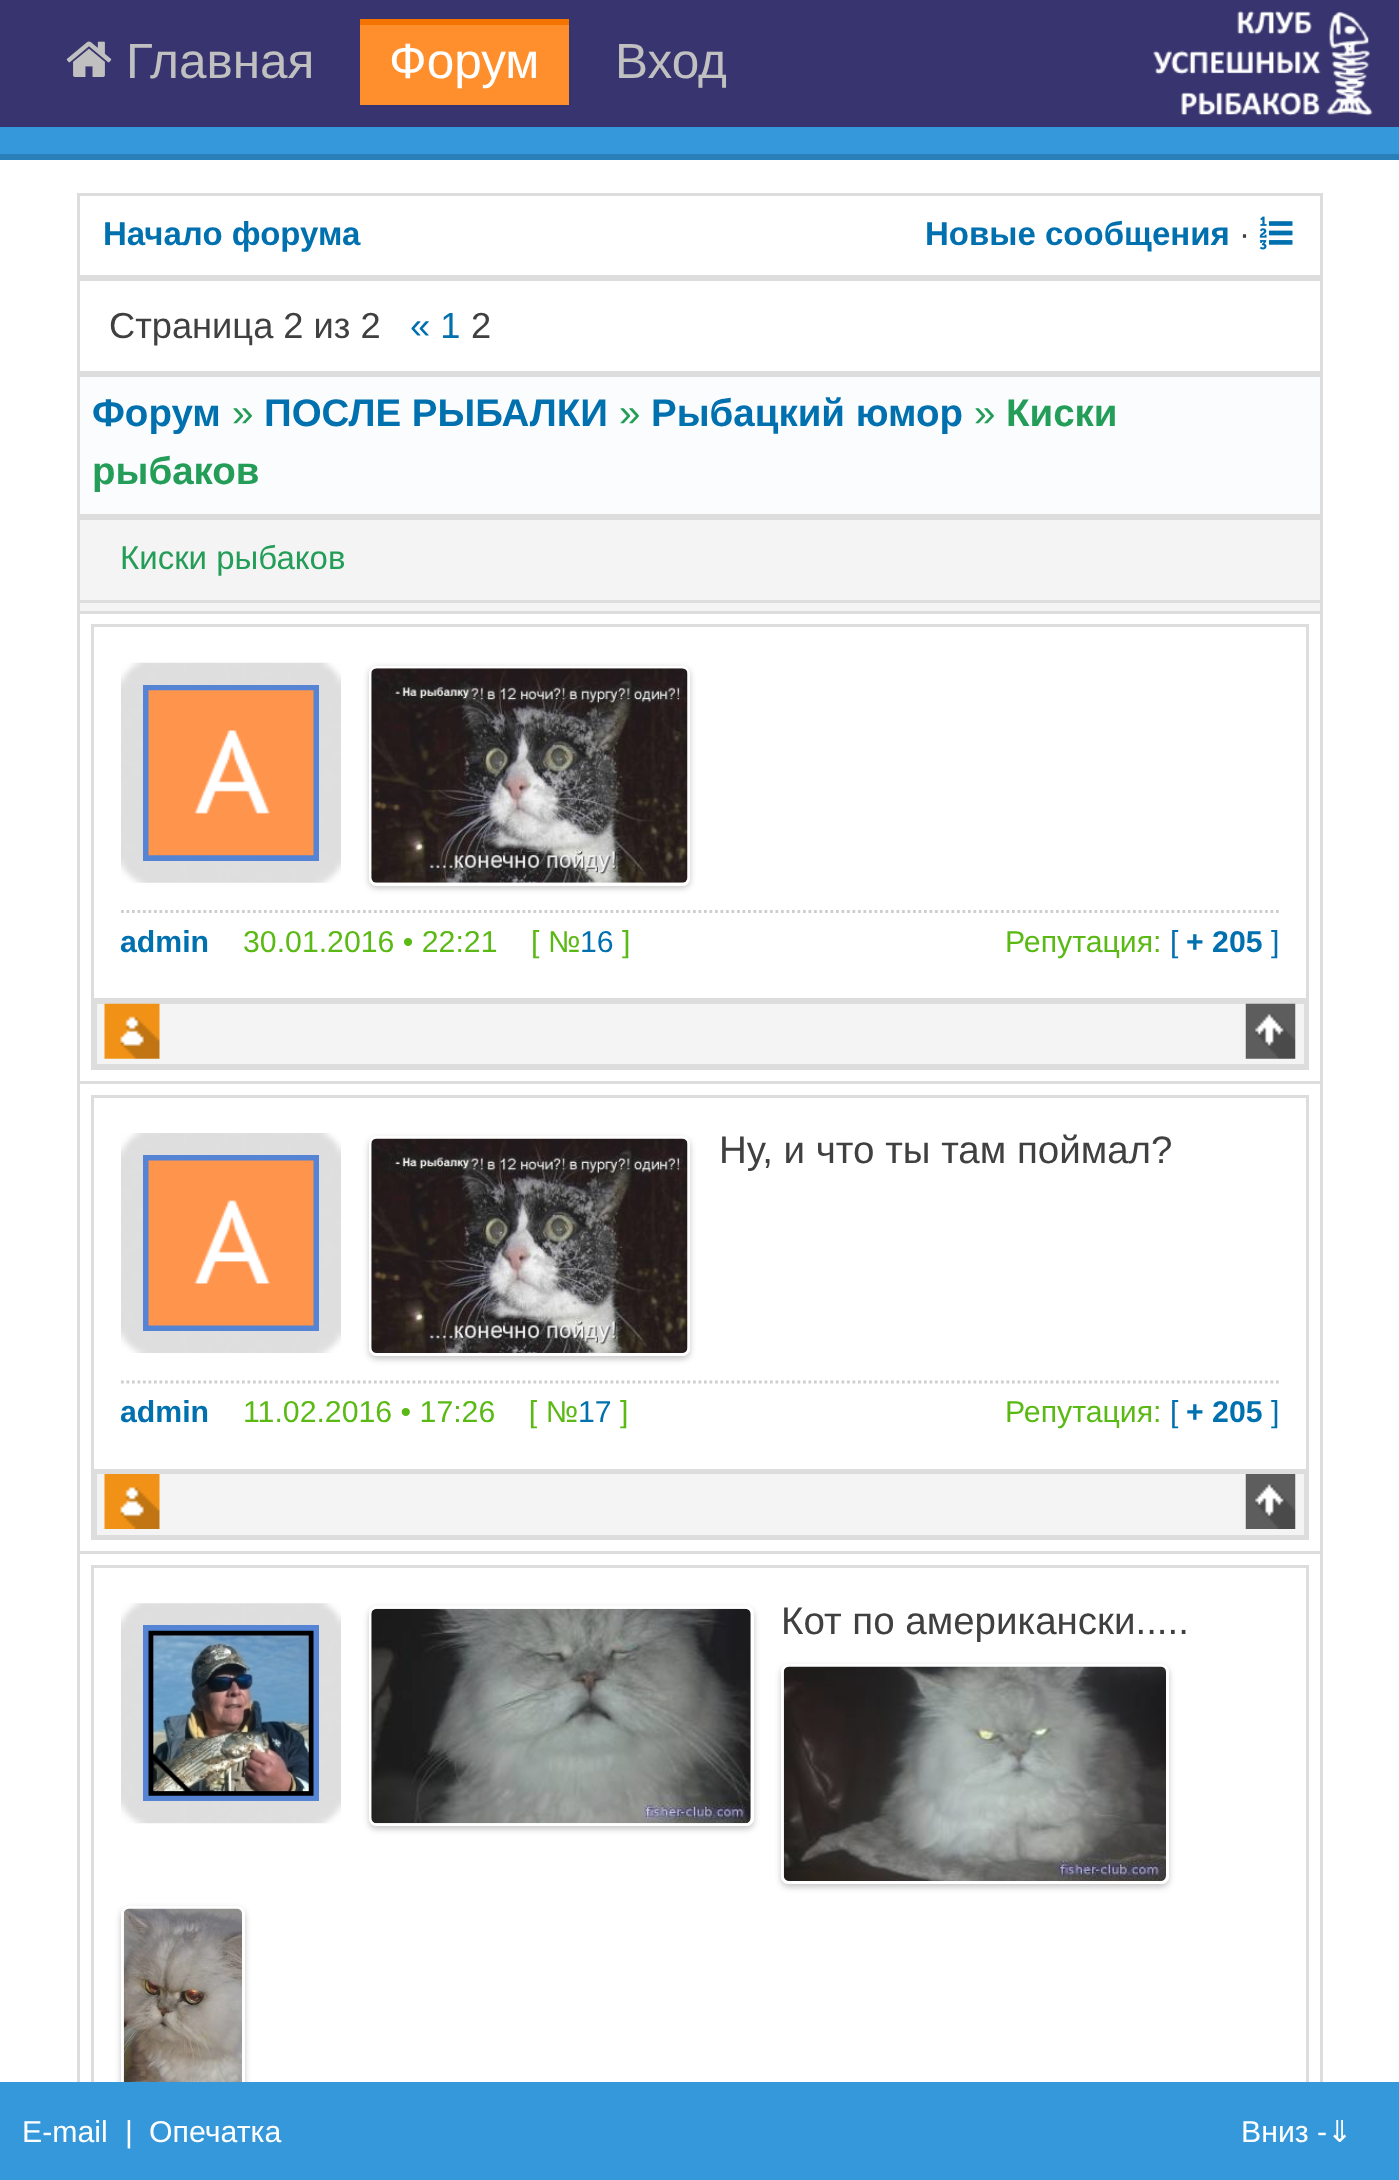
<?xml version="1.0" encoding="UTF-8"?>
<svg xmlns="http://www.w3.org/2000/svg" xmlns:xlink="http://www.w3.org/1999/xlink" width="1399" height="2180">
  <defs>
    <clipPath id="clip1"><path d="M 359 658 h 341 v 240 h -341 z m 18 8 h 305 c 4.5 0 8 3.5 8 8 v 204 c 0 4.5 -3.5 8 -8 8 h -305 c -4.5 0 -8 -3.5 -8 -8 v -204 c 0 -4.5 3.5 -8 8 -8 z" clip-rule="evenodd" /></clipPath>
    <clipPath id="clip2"><path d="M 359 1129 h 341 v 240 h -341 z m 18 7 h 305 c 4.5 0 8 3.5 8 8 v 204 c 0 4.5 -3.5 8 -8 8 h -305 c -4.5 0 -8 -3.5 -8 -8 v -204 c 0 -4.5 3.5 -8 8 -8 z" clip-rule="evenodd" /></clipPath>
    <clipPath id="clip3"><path d="M 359 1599 h 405 v 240 h -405 z m 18 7 h 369 c 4.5 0 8 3.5 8 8 v 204 c 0 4.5 -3.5 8 -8 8 h -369 c -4.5 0 -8 -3.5 -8 -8 v -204 c 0 -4.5 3.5 -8 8 -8 z" clip-rule="evenodd" /></clipPath>
    <clipPath id="clip4"><path d="M 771 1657 h 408 v 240 h -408 z m 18 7 h 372 c 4.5 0 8 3.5 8 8 v 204 c 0 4.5 -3.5 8 -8 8 h -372 c -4.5 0 -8 -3.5 -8 -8 v -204 c 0 -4.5 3.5 -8 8 -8 z" clip-rule="evenodd" /></clipPath>
    <clipPath id="clip5"><path d="M 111 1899 h 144 v 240 h -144 z m 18 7 h 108 c 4.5 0 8 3.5 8 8 v 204 c 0 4.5 -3.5 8 -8 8 h -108 c -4.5 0 -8 -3.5 -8 -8 v -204 c 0 -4.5 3.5 -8 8 -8 z" clip-rule="evenodd" /></clipPath>
  </defs>
  <rect width="100%" height="100%" fill="#38346f" />
  <path d="M 0 154 v 6 h 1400 v -154 v 148 z" fill="#2980b9" />
  <rect y="127" width="1399" height="27" fill="#3498db" />
  <image x="66" y="41" width="46" height="36" xlink:href="image1.png" />
  <rect x="360" y="25" width="209" height="80" fill="#ff8f2c" />
  <rect x="360" y="19" width="209" height="6" fill="#f57300" />
  <image x="1153" y="10" width="220" height="106" xlink:href="image2.png" />
  <rect y="160" width="1399" height="1922" fill="#ffffff" />
  <rect x="77" y="193" width="1246" height="3" fill="#dddddd" />
  <rect x="1320" y="193" width="3" height="85" fill="#dddddd" />
  <rect x="77" y="275" width="1246" height="6" fill="#dddddd" />
  <rect x="77" y="193" width="3" height="85" fill="#dddddd" />
  <image x="1259" y="216" width="34" height="34" xlink:href="image3.png" />
  <rect x="1320" y="278" width="3" height="96" fill="#dddddd" />
  <rect x="77" y="371" width="1246" height="6" fill="#dddddd" />
  <rect x="77" y="278" width="3" height="96" fill="#dddddd" />
  <rect x="1320" y="374" width="3" height="143" fill="#dddddd" />
  <rect x="77" y="514" width="1246" height="6" fill="#dddddd" />
  <rect x="77" y="374" width="3" height="1708" fill="#dddddd" />
  <rect x="80" y="377" width="1240" height="137" fill="#fafcfe" />
  <rect x="1320" y="517" width="3" height="1565" fill="#dddddd" />
  <rect x="80" y="520" width="1240" height="80" fill="#f4f4f4" />
  <rect x="77" y="600" width="1246" height="3" fill="#dddddd" />
  <rect x="80" y="603" width="1240" height="8" fill="#f4f4f4" />
  <rect x="77" y="611" width="1246" height="3" fill="#dddddd" />
  <rect x="91" y="624" width="1218" height="3" fill="#dddddd" />
  <rect x="1304" y="1001" width="2" height="66" fill="#dddddd" />
  <rect x="94" y="1064" width="1212" height="3" fill="#dddddd" />
  <rect x="94" y="1001" width="3" height="66" fill="#dddddd" />
  <rect x="91" y="1001" width="1218" height="3" fill="#dddddd" />
  <rect x="91" y="1067" width="1218" height="3" fill="#dddddd" />
  <rect x="1306" y="624" width="3" height="446" fill="#dddddd" />
  <rect x="91" y="624" width="3" height="446" fill="#dddddd" />
  <image x="121" y="662" width="220" height="221" xlink:href="image4.png" />
  <rect x="146" y="688" width="170" height="170" fill="none" stroke="#5584d5" stroke-width="6" />
  <image x="148" y="690" width="166" height="166" xlink:href="image5.png" />
  <g clip-path="url(#clip1)">
    <rect x="369" y="668" width="321" height="220" rx="8" fill="#1a1a1a" fill-opacity="0.25" filter="blur(3px)" />
  </g>
  <rect x="370.5" y="667.5" width="318" height="217" rx="6.5" fill="none" stroke="#ffffff" stroke-width="3" />
  <image x="371" y="668" width="317" height="215" xlink:href="image6.png" />
  <path d="M 121 911.5 h 1158" fill="none" stroke="#cecece" stroke-width="2.8" stroke-dasharray="2.75 2.75" />
  <rect x="97" y="1004" width="1207" height="60" fill="#f4f4f4" />
  <rect x="91" y="998" width="1218" height="3" fill="#dddddd" />
  <image x="104" y="1003" width="56" height="56" xlink:href="image7.png" />
  <image x="1245" y="1003" width="51" height="56" xlink:href="image8.png" />
  <rect x="77" y="1081" width="1246" height="3" fill="#dddddd" />
  <rect x="91" y="1095" width="1218" height="3" fill="#dddddd" />
  <rect x="1304" y="1471" width="2" height="66" fill="#dddddd" />
  <rect x="94" y="1535" width="1212" height="2" fill="#dddddd" />
  <rect x="94" y="1471" width="3" height="66" fill="#dddddd" />
  <rect x="91" y="1472" width="1218" height="2" fill="#dddddd" />
  <rect x="91" y="1537" width="1218" height="3" fill="#dddddd" />
  <rect x="1306" y="1095" width="3" height="445" fill="#dddddd" />
  <rect x="91" y="1095" width="3" height="445" fill="#dddddd" />
  <image x="121" y="1133" width="220" height="220" xlink:href="image9.png" />
  <rect x="146" y="1158" width="170" height="170" fill="none" stroke="#5584d5" stroke-width="6" />
  <image x="148" y="1160" width="166" height="166" xlink:href="image10.png" />
  <g clip-path="url(#clip2)">
    <rect x="369" y="1139" width="321" height="220" rx="8" fill="#1a1a1a" fill-opacity="0.25" filter="blur(3px)" />
  </g>
  <rect x="370.5" y="1137.5" width="318" height="217" rx="6.5" fill="none" stroke="#ffffff" stroke-width="3" />
  <image x="371" y="1138" width="317" height="215" xlink:href="image11.png" />
  <path d="M 121 1382 h 1158" fill="none" stroke="#cecece" stroke-width="2.8" stroke-dasharray="2.75 2.75" />
  <rect x="97" y="1474" width="1207" height="61" fill="#f4f4f4" />
  <rect x="91" y="1469" width="1218" height="3" fill="#dddddd" />
  <image x="104" y="1474" width="56" height="55" xlink:href="image12.png" />
  <image x="1245" y="1474" width="51" height="55" xlink:href="image13.png" />
  <rect x="77" y="1551" width="1246" height="3" fill="#dddddd" />
  <rect x="91" y="1565" width="1218" height="3" fill="#dddddd" />
  <rect x="1306" y="1565" width="3" height="517" fill="#dddddd" />
  <rect x="91" y="1565" width="3" height="517" fill="#dddddd" />
  <image x="121" y="1603" width="220" height="221" xlink:href="image14.png" />
  <rect x="146" y="1628" width="170" height="170" fill="none" stroke="#5584d5" stroke-width="6" />
  <image x="148" y="1630" width="166" height="166" xlink:href="image15.png" />
  <g clip-path="url(#clip3)">
    <rect x="369" y="1609" width="385" height="220" rx="8" fill="#1a1a1a" fill-opacity="0.25" filter="blur(3px)" />
  </g>
  <rect x="370.5" y="1607.5" width="382" height="217" rx="6.5" fill="none" stroke="#ffffff" stroke-width="3" />
  <image x="371" y="1608" width="380" height="216" xlink:href="image16.png" />
  <g clip-path="url(#clip4)">
    <rect x="781" y="1667" width="388" height="220" rx="8" fill="#1a1a1a" fill-opacity="0.25" filter="blur(3px)" />
  </g>
  <rect x="782.5" y="1665.5" width="385" height="217" rx="6.5" fill="none" stroke="#ffffff" stroke-width="3" />
  <image x="783" y="1666" width="383" height="215" xlink:href="image17.png" />
  <g clip-path="url(#clip5)">
    <rect x="121" y="1909" width="124" height="220" rx="8" fill="#1a1a1a" fill-opacity="0.25" filter="blur(3px)" />
  </g>
  <rect x="122.5" y="1907.5" width="121" height="217" rx="6.5" fill="none" stroke="#ffffff" stroke-width="3" />
  <image x="123" y="1908" width="119" height="174" xlink:href="image18.png" />
  <rect y="2082" width="1399" height="98" fill="#3498db" />
  <text x="126" y="78" style="font-family: Liberation Sans; font-size: 49.5px; fill: #c0c0c0">Главная</text>
  <text x="389" y="78" style="font-family: Liberation Sans; font-size: 49.5px; fill: #ffffff">Форум</text>
  <text x="615" y="78" style="font-family: Liberation Sans; font-size: 49.5px; fill: #c0c0c0">Вход</text>
  <text x="103" y="245" style="font-family: Liberation Sans; font-size: 33px; font-weight: bold; fill: #0070af">Начало форума</text>
  <text x="925" y="245" style="font-family: Liberation Sans; font-size: 33px; font-weight: bold; fill: #0070af">Новые сообщения</text>
  <text x="1239" y="245" style="font-family: Liberation Sans; font-size: 33px; fill: #404040">·</text>
  <text x="109" y="338" style="font-family: Liberation Sans; font-size: 36.25px; fill: #404040">Страница 2 из 2</text>
  <text x="410" y="338" style="font-family: Liberation Sans; font-size: 36.25px; fill: #0070af">« 1</text>
  <text x="471" y="338" style="font-family: Liberation Sans; font-size: 36.25px; fill: #404040">2</text>
  <text x="92" y="426" style="font-family: Liberation Sans; font-size: 38.5px; font-weight: bold; fill: #0070af">Форум</text>
  <text x="232" y="426" style="font-family: Liberation Sans; font-size: 38.5px; fill: #239d57">»</text>
  <text x="264" y="426" style="font-family: Liberation Sans; font-size: 38.5px; font-weight: bold; fill: #0070af">ПОСЛЕ РЫБАЛКИ</text>
  <text x="619" y="426" style="font-family: Liberation Sans; font-size: 38.5px; fill: #239d57">»</text>
  <text x="651" y="426" style="font-family: Liberation Sans; font-size: 38.5px; font-weight: bold; fill: #0070af">Рыбацкий юмор</text>
  <text x="974" y="426" style="font-family: Liberation Sans; font-size: 38.5px; fill: #239d57">»</text>
  <text x="1006" y="426" style="font-family: Liberation Sans; font-size: 38.5px; font-weight: bold; fill: #239d57">Киски</text>
  <text x="92" y="484" style="font-family: Liberation Sans; font-size: 38.5px; font-weight: bold; fill: #239d57">рыбаков</text>
  <text x="120" y="569" style="font-family: Liberation Sans; font-size: 33px; fill: #239d57">Киски рыбаков</text>
  <text x="120" y="952" style="font-family: Liberation Sans; font-size: 30.25px; font-weight: bold; fill: #0070af">admin</text>
  <text x="243" y="952" style="font-family: Liberation Sans; font-size: 30.25px; fill: #5bb915" xml:space="preserve">30.01.2016 • 22:21    [ №</text>
  <text x="580" y="952" style="font-family: Liberation Sans; font-size: 30.25px; fill: #0070af">16</text>
  <text x="622" y="952" style="font-family: Liberation Sans; font-size: 30.25px; fill: #5bb915">]</text>
  <text x="1005" y="952" style="font-family: Liberation Sans; font-size: 30.25px; fill: #5bb915">Репутация:</text>
  <text x="1170" y="952" style="font-family: Liberation Sans; font-size: 30.25px; fill: #0070af">[</text>
  <text x="1186" y="952" style="font-family: Liberation Sans; font-size: 30.25px; font-weight: bold; fill: #0070af">+ 205</text>
  <text x="1271" y="952" style="font-family: Liberation Sans; font-size: 30.25px; fill: #0070af">]</text>
  <text x="719" y="1163" style="font-family: Liberation Sans; font-size: 38.5px; fill: #404040">Ну, и что ты там поймал?</text>
  <text x="120" y="1422" style="font-family: Liberation Sans; font-size: 30.25px; font-weight: bold; fill: #0070af">admin</text>
  <text x="243" y="1422" style="font-family: Liberation Sans; font-size: 30.25px; fill: #5bb915" xml:space="preserve">11.02.2016 • 17:26    [ №</text>
  <text x="578" y="1422" style="font-family: Liberation Sans; font-size: 30.25px; fill: #0070af">17</text>
  <text x="620" y="1422" style="font-family: Liberation Sans; font-size: 30.25px; fill: #5bb915">]</text>
  <text x="1005" y="1422" style="font-family: Liberation Sans; font-size: 30.25px; fill: #5bb915">Репутация:</text>
  <text x="1170" y="1422" style="font-family: Liberation Sans; font-size: 30.25px; fill: #0070af">[</text>
  <text x="1186" y="1422" style="font-family: Liberation Sans; font-size: 30.25px; font-weight: bold; fill: #0070af">+ 205</text>
  <text x="1271" y="1422" style="font-family: Liberation Sans; font-size: 30.25px; fill: #0070af">]</text>
  <text x="781" y="1634" style="font-family: Liberation Sans; font-size: 38.5px; fill: #404040">Кот по американски.....</text>
  <text x="22" y="2142" style="font-family: Liberation Sans; font-size: 30.25px; fill: #ffffff">E-mail</text>
  <text x="125" y="2142" style="font-family: Liberation Sans; font-size: 30.25px; fill: #ffffff">|</text>
  <text x="149" y="2142" style="font-family: Liberation Sans; font-size: 30.25px; fill: #ffffff">Опечатка</text>
  <text x="1241" y="2142" style="font-family: Liberation Sans; font-size: 30.25px; fill: #ffffff">Вниз -</text>
  <text x="1327" y="2142" style="font-family: DejaVu Sans; font-size: 30.25px; fill: #ffffff">⇓</text>
</svg>
